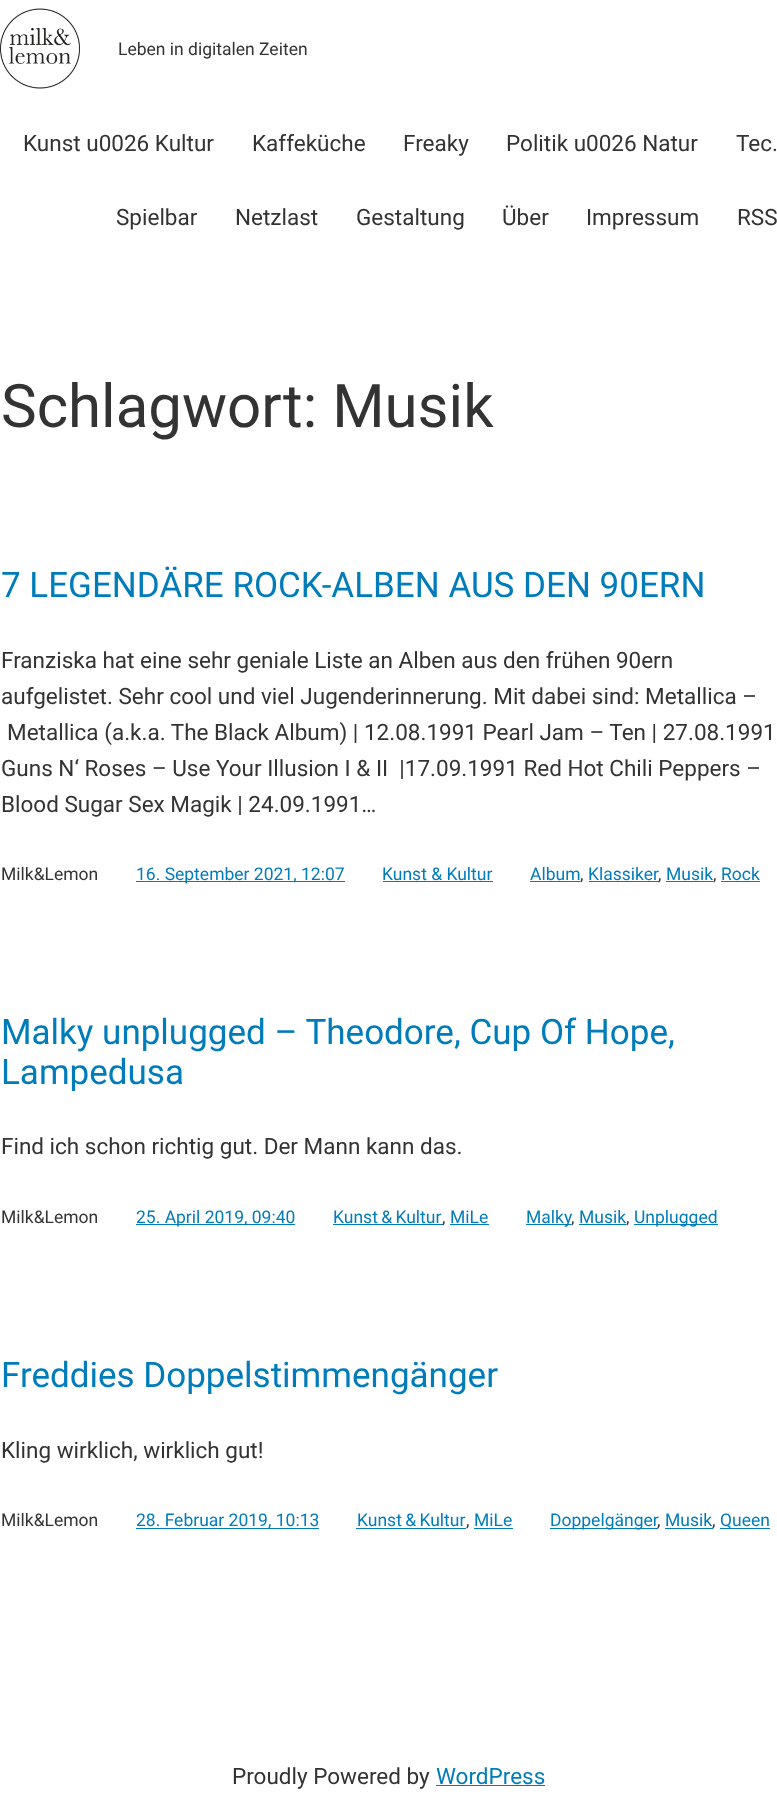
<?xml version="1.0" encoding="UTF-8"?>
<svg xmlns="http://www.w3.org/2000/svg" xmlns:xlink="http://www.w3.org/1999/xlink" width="777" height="1816">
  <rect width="100%" height="100%" fill="#ffffff" />
  <image x="0" y="8" width="80" height="81" xlink:href="image1.png" />
  <rect x="136" y="881" width="209" height="1" fill="#007cba" />
  <rect x="383" y="881" width="110" height="1" fill="#007cba" />
  <rect x="530" y="881" width="50" height="1" fill="#007cba" />
  <rect x="589" y="881" width="70" height="1" fill="#007cba" />
  <rect x="666" y="881" width="47" height="1" fill="#007cba" />
  <rect x="721" y="881" width="39" height="1" fill="#007cba" />
  <rect x="136" y="1224" width="159" height="1" fill="#007cba" />
  <rect x="333" y="1224" width="110" height="1" fill="#007cba" />
  <rect x="450" y="1224" width="39" height="1" fill="#007cba" />
  <rect x="526" y="1224" width="45" height="1" fill="#007cba" />
  <rect x="579" y="1224" width="47" height="1" fill="#007cba" />
  <rect x="634" y="1224" width="84" height="1" fill="#007cba" />
  <rect x="136" y="1528" width="183" height="1" fill="#007cba" />
  <rect x="356" y="1528" width="110" height="1" fill="#007cba" />
  <rect x="474" y="1528" width="39" height="1" fill="#007cba" />
  <rect x="550" y="1528" width="108" height="1" fill="#007cba" />
  <rect x="665" y="1528" width="48" height="1" fill="#007cba" />
  <rect x="720" y="1528" width="50" height="1" fill="#007cba" />
  <rect x="436" y="1785" width="109" height="1" fill="#007cba" />
  <text x="118" y="55" style="font-family: Roboto; font-size: 17.5px; fill: #333333">Leben in digitalen Zeiten</text>
  <text x="23" y="151" style="font-family: Roboto; font-size: 22.5px; fill: #333333">Kunst u0026 Kultur</text>
  <text x="252" y="151" style="font-family: Roboto; font-size: 22.5px; fill: #333333">Kaffeküche</text>
  <text x="403" y="151" style="font-family: Roboto; font-size: 22.5px; fill: #333333">Freaky</text>
  <text x="506" y="151" style="font-family: Roboto; font-size: 22.5px; fill: #333333">Politik u0026 Natur</text>
  <text x="736" y="151" style="font-family: Roboto; font-size: 22.5px; fill: #333333">Tec.</text>
  <text x="116" y="225" style="font-family: Roboto; font-size: 22.5px; fill: #333333">Spielbar</text>
  <text x="235" y="225" style="font-family: Roboto; font-size: 22.5px; fill: #333333">Netzlast</text>
  <text x="356" y="225" style="font-family: Roboto; font-size: 22.5px; fill: #333333">Gestaltung</text>
  <text x="502" y="225" style="font-family: Roboto; font-size: 22.5px; fill: #333333">Über</text>
  <text x="586" y="225" style="font-family: Roboto; font-size: 22.5px; fill: #333333">Impressum</text>
  <text x="737" y="225" style="font-family: Roboto; font-size: 22.5px; fill: #333333">RSS</text>
  <text x="1" y="427" style="font-family: Roboto; font-size: 60px; fill: #333333">Schlagwort: Musik</text>
  <text x="1" y="597" style="font-family: Roboto; font-size: 35px; fill: #007cba">7 LEGENDÄRE ROCK-ALBEN AUS DEN 90ERN</text>
  <text x="1" y="668" style="font-family: Roboto; font-size: 22.5px; fill: #333333">Franziska hat eine sehr geniale Liste an Alben aus den frühen 90ern</text>
  <text x="1" y="704" style="font-family: Roboto; font-size: 22.5px; fill: #333333">aufgelistet. Sehr cool und viel Jugenderinnerung. Mit dabei sind: Metallica –</text>
  <text x="7" y="740" style="font-family: Roboto; font-size: 22.5px; fill: #333333">Metallica (a.k.a. The Black Album) | 12.08.1991 Pearl Jam – Ten | 27.08.1991</text>
  <text x="1" y="776" style="font-family: Roboto; font-size: 22.5px; fill: #333333" xml:space="preserve">Guns N‘ Roses – Use Your Illusion I &amp; II  |17.09.1991 Red Hot Chili Peppers –</text>
  <text x="1" y="812" style="font-family: Roboto; font-size: 22.5px; fill: #333333">Blood Sugar Sex Magik | 24.09.1991…</text>
  <text x="1" y="880" style="font-family: Roboto; font-size: 17.5px; fill: #333333">Milk&amp;Lemon</text>
  <text x="136" y="880" style="font-family: Roboto; font-size: 17.5px; fill: #007cba">16. September 2021, 12:07</text>
  <text x="382" y="880" style="font-family: Roboto; font-size: 17.5px; fill: #007cba">Kunst &amp; Kultur</text>
  <text x="530" y="880" style="font-family: Roboto; font-size: 17.5px; fill: #007cba">Album</text>
  <text x="580" y="880" style="font-family: Roboto; font-size: 17.5px; fill: #333333">,</text>
  <text x="588" y="880" style="font-family: Roboto; font-size: 17.5px; fill: #007cba">Klassiker</text>
  <text x="666" y="880" style="font-family: Roboto; font-size: 17.5px; fill: #007cba">Musik</text>
  <text x="721" y="880" style="font-family: Roboto; font-size: 17.5px; fill: #007cba">Rock</text>
  <text x="658" y="880" style="font-family: Roboto; font-size: 17.5px; fill: #333333">,</text>
  <text x="713" y="880" style="font-family: Roboto; font-size: 17.5px; fill: #333333">,</text>
  <text x="1" y="1044" style="font-family: Roboto; font-size: 35px; fill: #007cba">Malky unplugged – Theodore, Cup Of Hope,</text>
  <text x="1" y="1084" style="font-family: Roboto; font-size: 35px; fill: #007cba">Lampedusa</text>
  <text x="1" y="1154" style="font-family: Roboto; font-size: 22.5px; fill: #333333">Find ich schon richtig gut. Der Mann kann das.</text>
  <text x="1" y="1223" style="font-family: Roboto; font-size: 17.5px; fill: #333333">Milk&amp;Lemon</text>
  <text x="136" y="1223" style="font-family: Roboto; font-size: 17.5px; fill: #007cba">25. April 2019, 09:40</text>
  <text x="333" y="1223" word-spacing="-1" style="font-family: Roboto; font-size: 17.5px; fill: #007cba">Kunst &amp; Kultur</text>
  <text x="442" y="1223" style="font-family: Roboto; font-size: 17.5px; fill: #333333">,</text>
  <text x="450" y="1223" style="font-family: Roboto; font-size: 17.5px; fill: #007cba">MiLe</text>
  <text x="526" y="1223" style="font-family: Roboto; font-size: 17.5px; fill: #007cba">Malky</text>
  <text x="571" y="1223" style="font-family: Roboto; font-size: 17.5px; fill: #333333">,</text>
  <text x="579" y="1223" style="font-family: Roboto; font-size: 17.5px; fill: #007cba">Musik</text>
  <text x="626" y="1223" style="font-family: Roboto; font-size: 17.5px; fill: #333333">,</text>
  <text x="634" y="1223" style="font-family: Roboto; font-size: 17.5px; fill: #007cba">Unplugged</text>
  <text x="1" y="1387" style="font-family: Roboto; font-size: 35px; fill: #007cba">Freddies Doppelstimmengänger</text>
  <text x="1" y="1458" style="font-family: Roboto; font-size: 22.5px; fill: #333333">Kling wirklich, wirklich gut!</text>
  <text x="1" y="1526" style="font-family: Roboto; font-size: 17.5px; fill: #333333">Milk&amp;Lemon</text>
  <text x="136" y="1526" style="font-family: Roboto; font-size: 17.5px; fill: #007cba">28. Februar 2019, 10:13</text>
  <text x="357" y="1526" word-spacing="-1" style="font-family: Roboto; font-size: 17.5px; fill: #007cba">Kunst &amp; Kultur</text>
  <text x="466" y="1526" style="font-family: Roboto; font-size: 17.5px; fill: #333333">,</text>
  <text x="474" y="1526" style="font-family: Roboto; font-size: 17.5px; fill: #007cba">MiLe</text>
  <text x="550" y="1526" style="font-family: Roboto; font-size: 17.5px; fill: #007cba">Doppelgänger</text>
  <text x="665" y="1526" style="font-family: Roboto; font-size: 17.5px; fill: #007cba">Musik</text>
  <text x="720" y="1526" style="font-family: Roboto; font-size: 17.5px; fill: #007cba">Queen</text>
  <text x="657" y="1526" style="font-family: Roboto; font-size: 17.5px; fill: #333333">,</text>
  <text x="712" y="1526" style="font-family: Roboto; font-size: 17.5px; fill: #333333">,</text>
  <text x="232" y="1784" style="font-family: Roboto; font-size: 22.5px; fill: #333333">Proudly Powered by</text>
  <text x="436" y="1784" style="font-family: Roboto; font-size: 22.5px; fill: #007cba">WordPress</text>
</svg>
